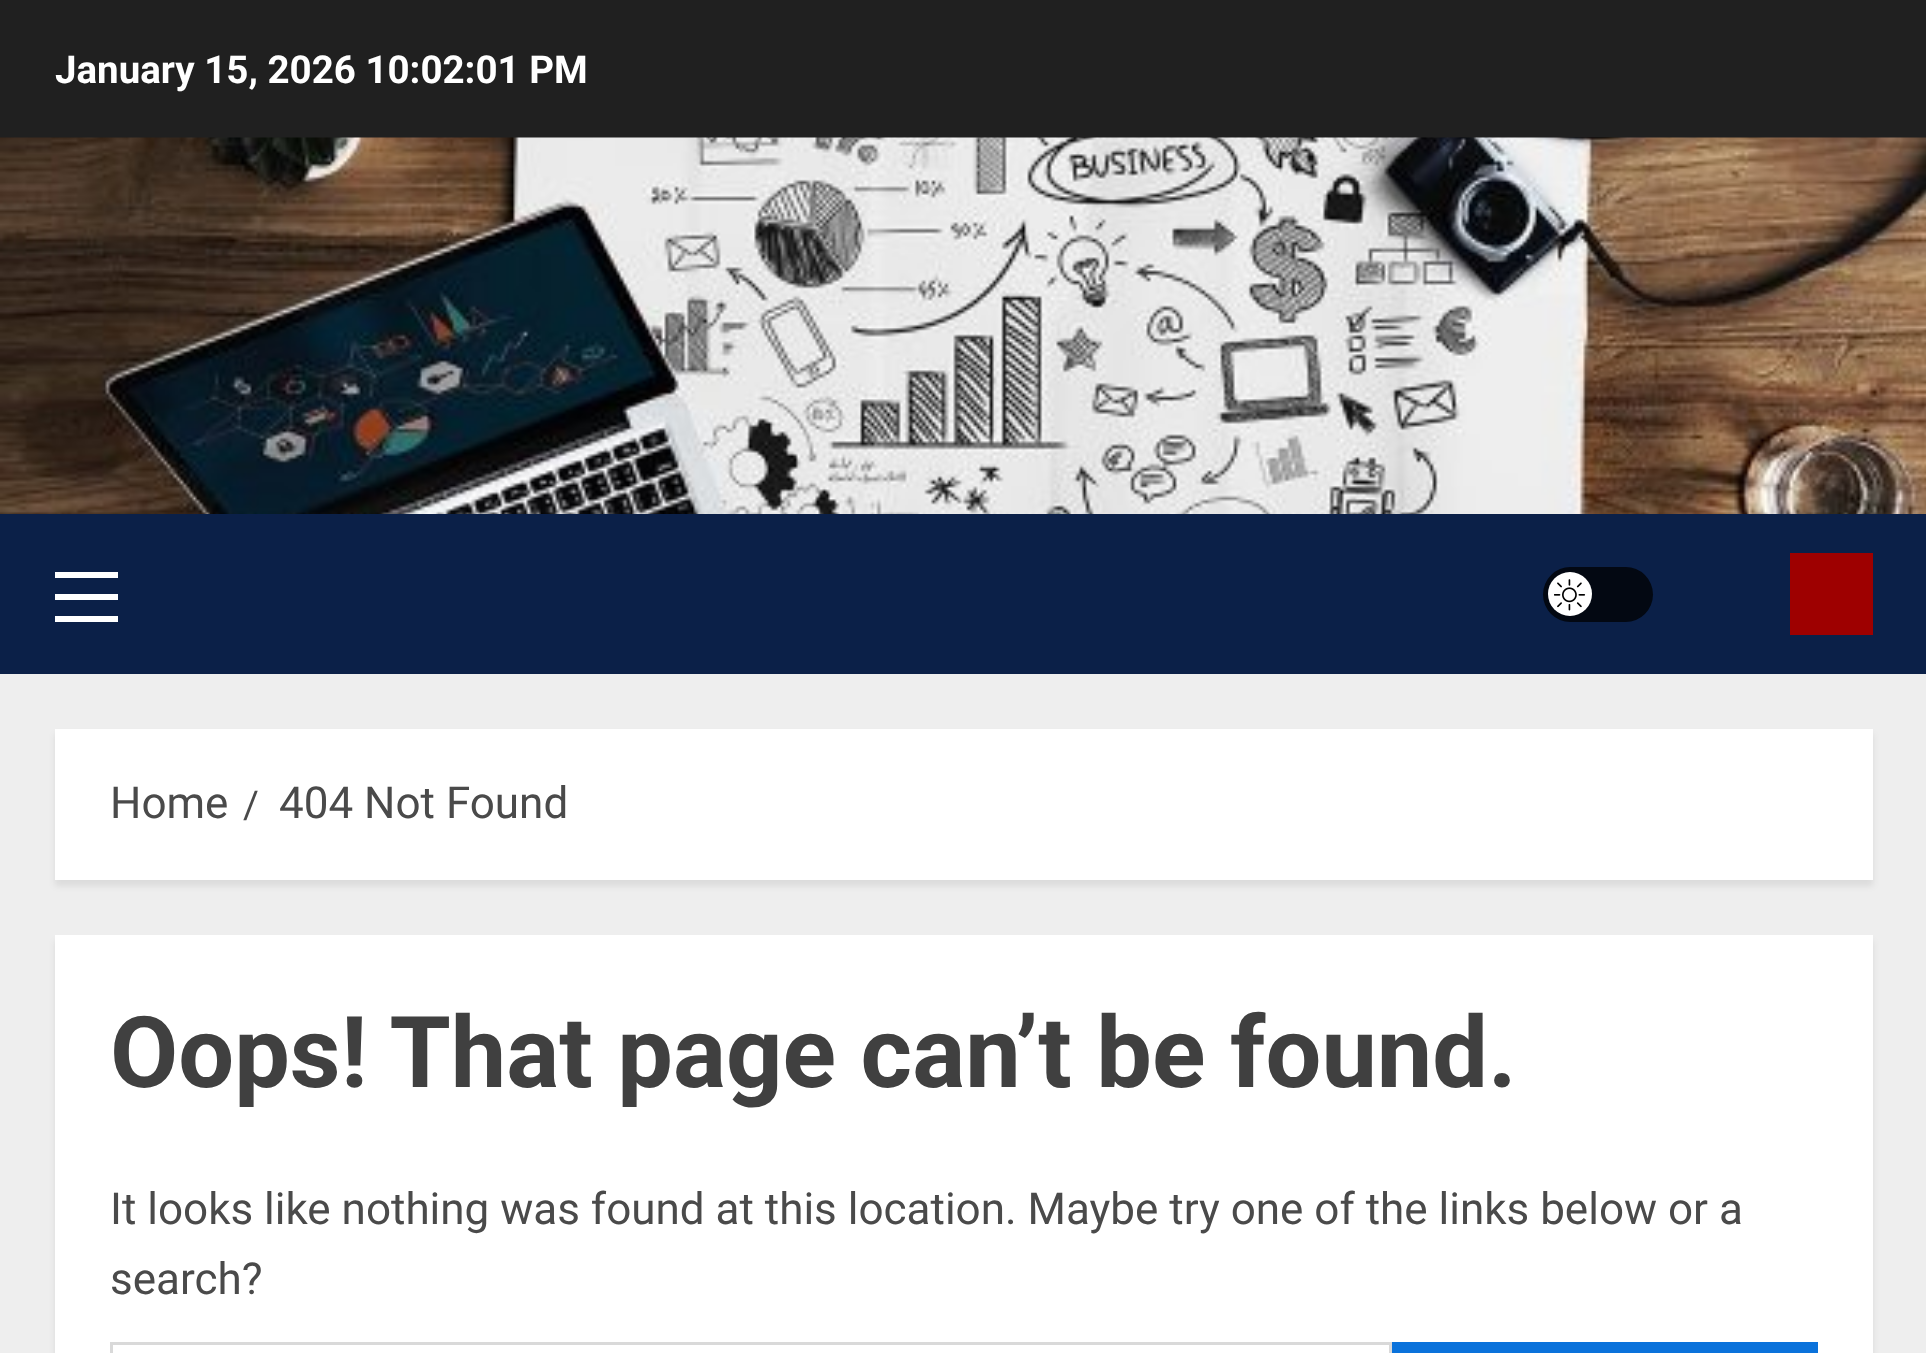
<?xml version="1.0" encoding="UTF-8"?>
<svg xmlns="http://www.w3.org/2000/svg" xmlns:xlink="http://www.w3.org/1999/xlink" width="1926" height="1353">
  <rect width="100%" height="100%" fill="#eeeeee" />
  <rect width="1926" height="138" fill="#202020" />
  <image x="0" y="137" width="1926" height="377" xlink:href="image1.png" />
  <rect y="514" width="1926" height="160" fill="#0b2048" />
  <rect x="55" y="594" width="63" height="6" fill="#ffffff" />
  <rect x="55" y="572" width="63" height="6" fill="#ffffff" />
  <rect x="55" y="616" width="63" height="6" fill="#ffffff" />
  <rect x="1543" y="567" width="110" height="55" rx="27.5" fill="#030812" />
  <circle cx="1570" cy="594" r="22" fill="#ffffff" />
  <image x="1554" y="579" width="32" height="32" xlink:href="image2.png" />
  <rect x="1790" y="553" width="83" height="82" fill="#9e0000" />
  <rect x="55" y="734" width="1818" height="152" fill="#000000" fill-opacity="0.08" filter="blur(3px)" />
  <rect x="55" y="729" width="1818" height="151" fill="#ffffff" />
  <rect x="55" y="941" width="1818" height="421" fill="#000000" fill-opacity="0.08" filter="blur(3px)" />
  <rect x="55" y="935" width="1818" height="418" fill="#ffffff" />
  <rect x="111.5" y="1343.5" width="1279" height="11" fill="none" stroke="#d9d9d9" stroke-width="3" />
  <rect x="1392" y="1342" width="426" height="11" fill="#0a72db" />
  <text x="55" y="83" style="font-family: Roboto; font-size: 38.5px; font-weight: bold; fill: #ffffff">January 15, 2026 10:02:01 PM</text>
  <text x="110" y="818" style="font-family: Roboto; font-size: 44px; fill: #4a4a4a">Home</text>
  <text x="243" y="818" style="font-family: Roboto; font-size: 38.5px; fill: #4a4a4a">/</text>
  <text x="279" y="818" style="font-family: Roboto; font-size: 44px; fill: #4a4a4a">404 Not Found</text>
  <text x="110" y="1087" style="font-family: Roboto; font-size: 99px; font-weight: bold; fill: #404040">Oops! That page can’t be found.</text>
  <text x="110" y="1224" style="font-family: Roboto; font-size: 44px; fill: #4a4a4a">It looks like nothing was found at this location. Maybe try one of the links below or a</text>
  <text x="110" y="1294" style="font-family: Roboto; font-size: 44px; fill: #4a4a4a">search?</text>
</svg>
